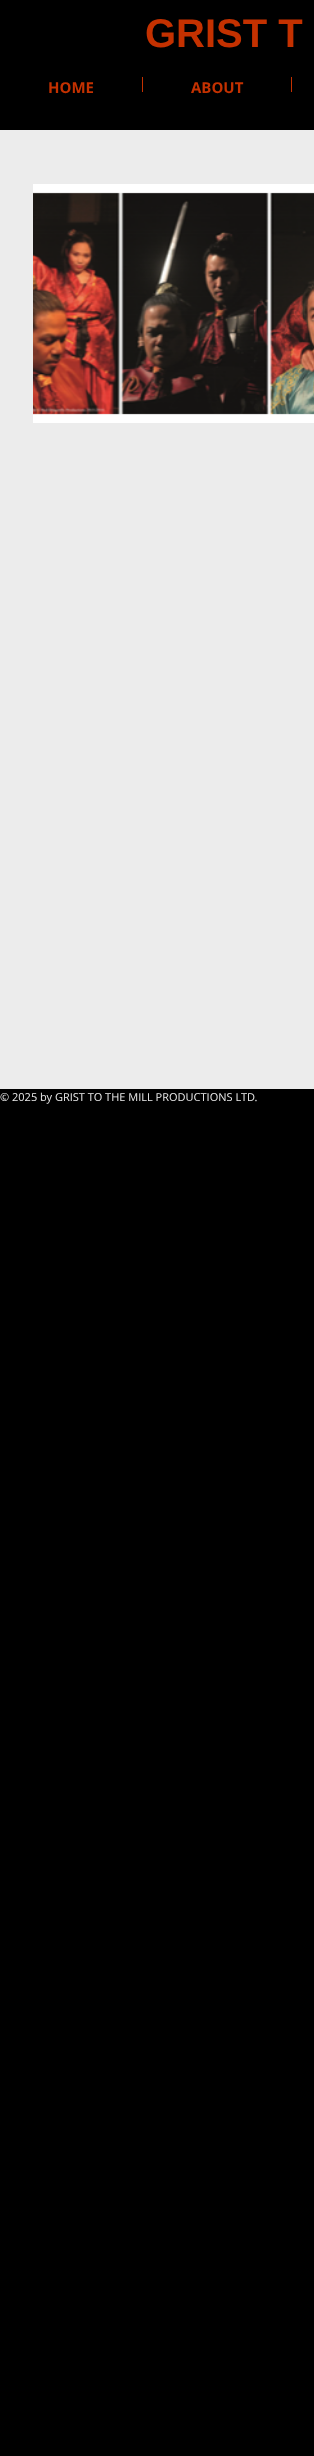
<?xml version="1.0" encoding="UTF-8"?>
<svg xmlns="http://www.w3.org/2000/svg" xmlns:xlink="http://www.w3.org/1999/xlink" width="314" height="2456">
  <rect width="100%" height="100%" fill="#000000" />
  <rect x="142" y="77" width="1" height="15" fill="#c43100" />
  <rect x="291" y="77" width="1" height="15" fill="#c43100" />
  <rect y="130" width="314" height="959" fill="#ececec" />
  <image x="33" y="184" width="281" height="239" xlink:href="image1.png" />
  <text x="145" y="47" style="font-family: Liberation Sans; font-size: 40px; font-weight: bold; fill: #c43100">GRIST T</text>
  <text x="48" y="93" style="font-family: Open Sans; font-size: 15px; font-weight: bold; fill: #c43100">HOME</text>
  <text x="191" y="93" style="font-family: Open Sans; font-size: 15px; font-weight: bold; fill: #c43100">ABOUT</text>
  <text x="0" y="1101" style="font-family: Open Sans; font-size: 11px; fill: #ececec">© 2025 by GRIST TO THE MILL PRODUCTIONS LTD.</text>
</svg>
